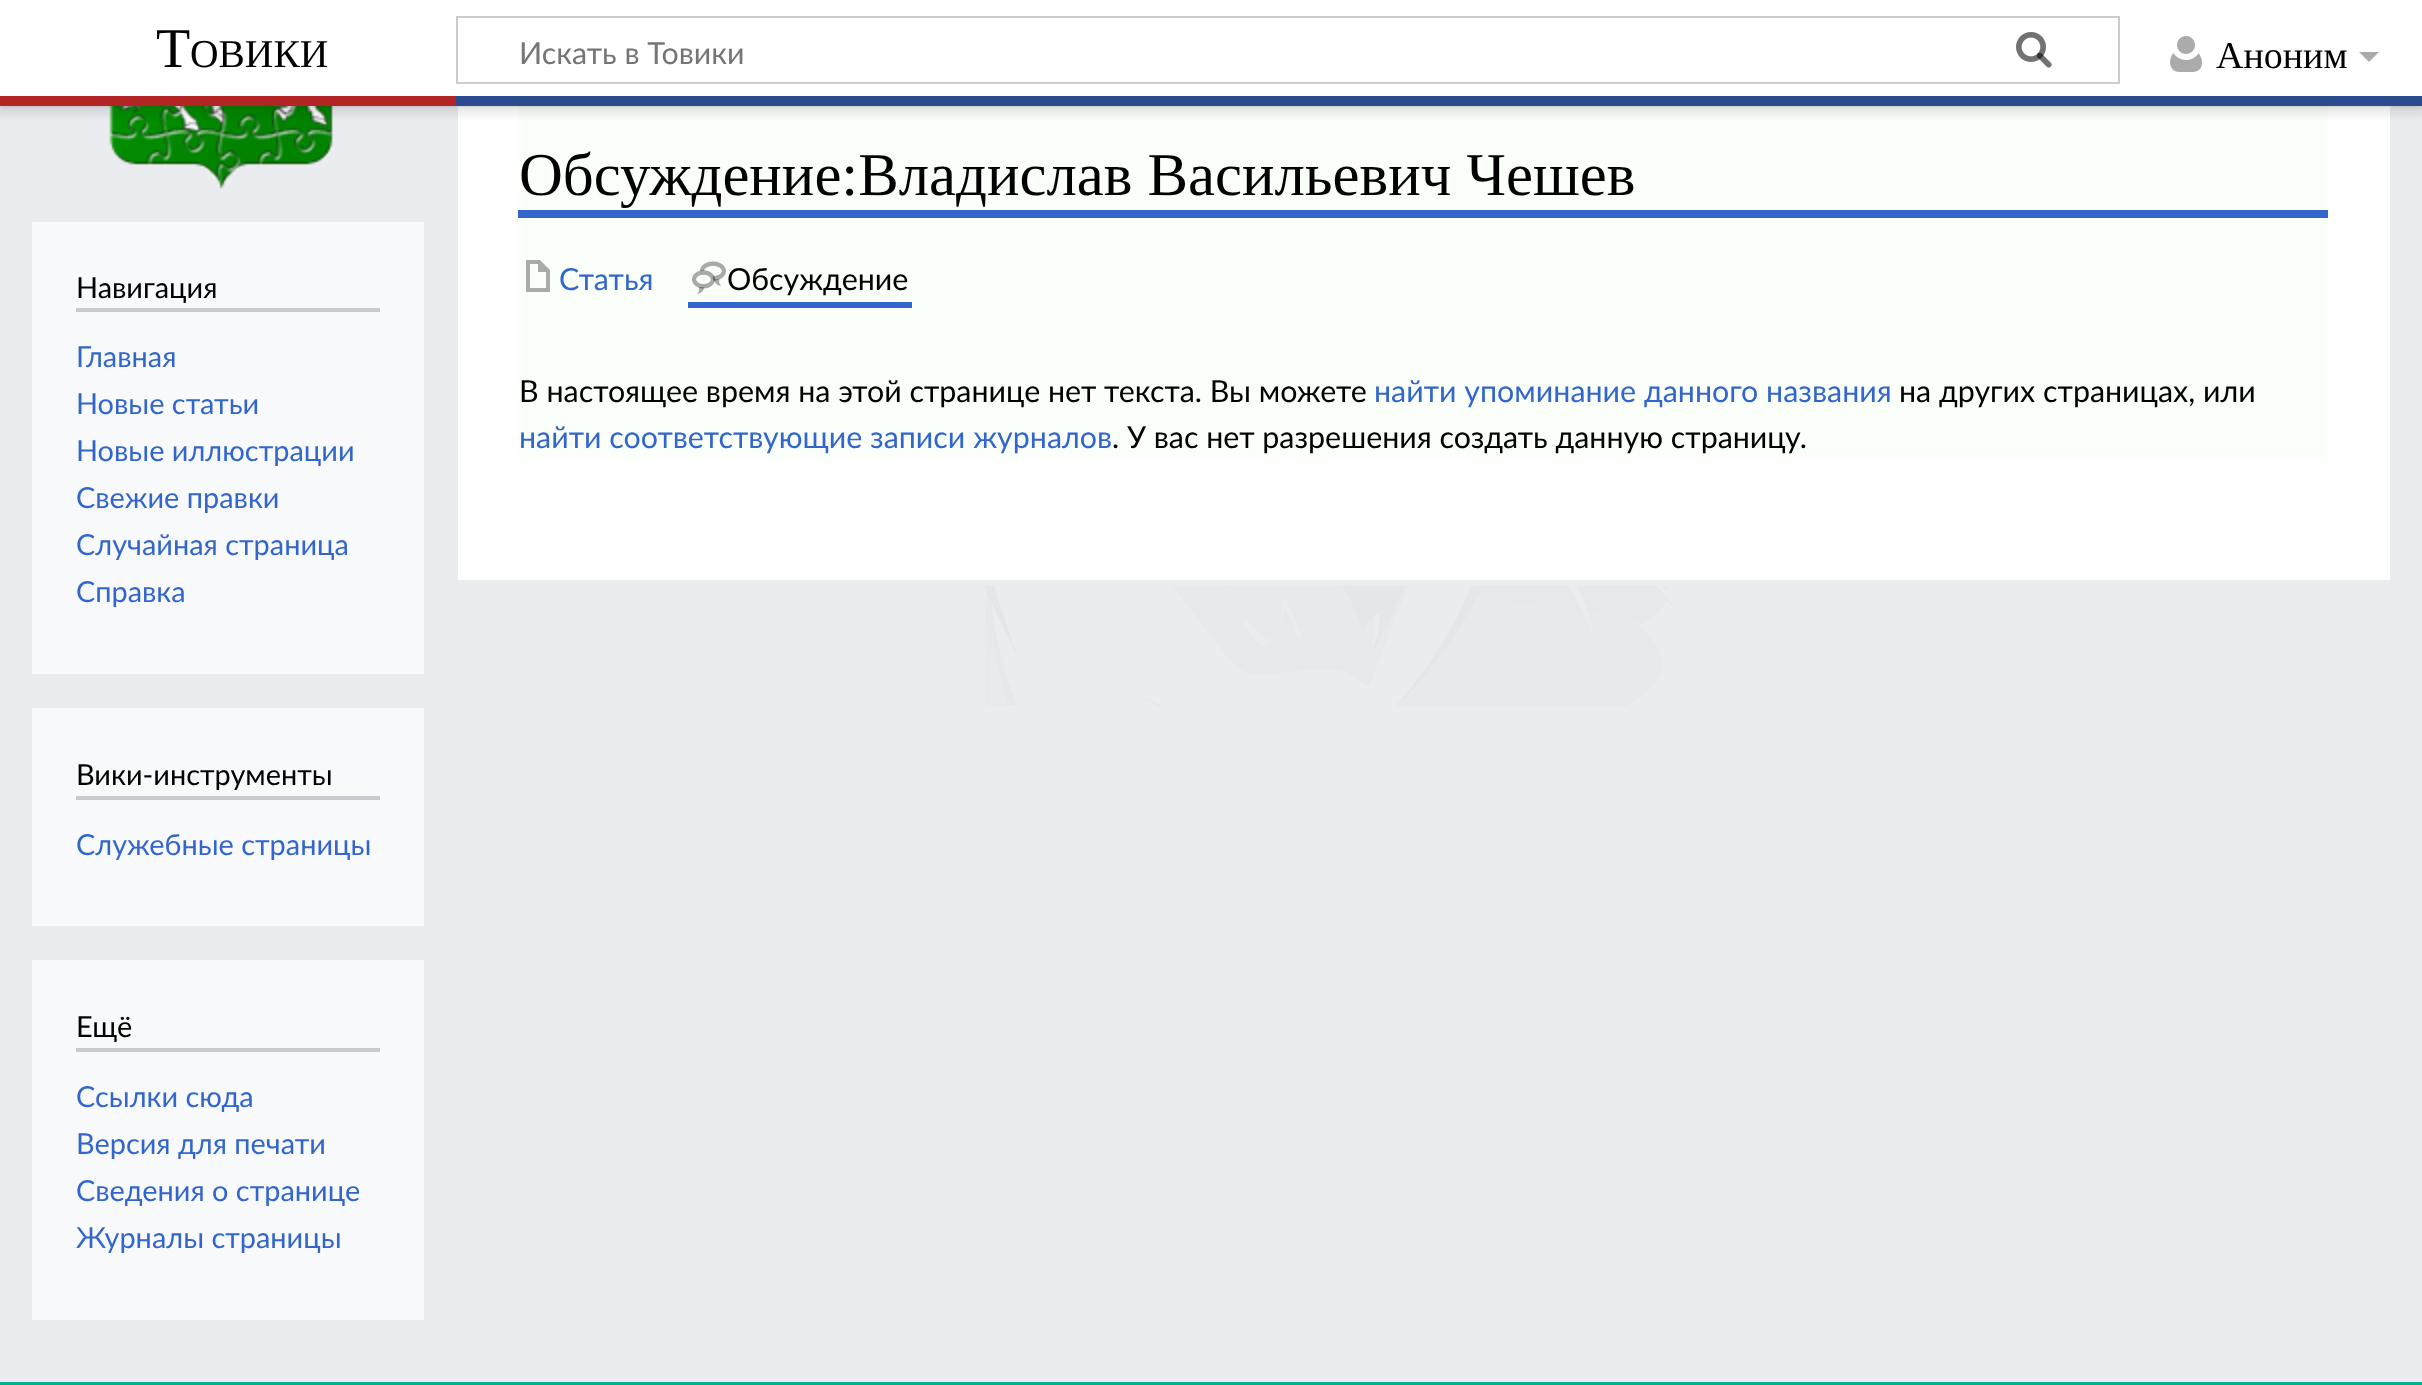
<?xml version="1.0" encoding="UTF-8"?>
<svg xmlns="http://www.w3.org/2000/svg" xmlns:xlink="http://www.w3.org/1999/xlink" width="2422" height="1385">
  <rect width="100%" height="100%" fill="#eaecf0" />
  <image x="109" y="106" width="224" height="83" xlink:href="image5.png" />
  <rect x="458" y="106" width="1932" height="474" fill="#ffffff" />
  <rect x="518" y="106" width="1810" height="354" fill="#fafffa" />
  <rect y="96" width="2422" height="10" fill="#000000" fill-opacity="0.2" filter="blur(2px)" />
  <rect x="-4" y="98" width="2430" height="18" fill="#000000" fill-opacity="0.07" filter="blur(3px)" />
  <rect width="2422" height="96" fill="#ffffff" />
  <rect x="457" y="17" width="1662" height="66" fill="none" stroke="#c8ccd1" stroke-width="2" />
  <image x="2016" y="32" width="36" height="36" xlink:href="image1.png" />
  <image x="2016" y="32" width="36" height="36" xlink:href="image2.png" />
  <image x="2170" y="36" width="32" height="36" xlink:href="image3.png" />
  <path d="M 2379 52 l -10 10 l -10 -10 z" fill="#ababab" />
  <rect y="96" width="456" height="10" fill="#b32424" />
  <rect x="456" y="96" width="1966" height="10" fill="#2a4b8d" />
  <image x="985" y="586" width="688" height="120" xlink:href="image4.png" />
  <rect y="1382" width="2422" height="3" fill="#00af89" />
  <rect x="32" y="222" width="392" height="452" fill="#f8f9fa" />
  <rect x="76" y="308" width="304" height="4" fill="#c8ccd1" />
  <rect x="32" y="708" width="392" height="218" fill="#f8f9fa" />
  <rect x="76" y="796" width="304" height="4" fill="#c8ccd1" />
  <rect x="518" y="210" width="1810" height="8" fill="#3366cc" />
  <path d="M 526 260 v 32 h 24 v -22 l -10 -10 z m 4 4 h 8 v 8 h 8 v 16 h -16 z" fill="#a8aba8" />
  <rect x="688" y="302" width="224" height="6" fill="#3366cc" />
  <image x="692" y="261" width="34" height="33" xlink:href="image6.png" />
  <rect x="32" y="960" width="392" height="360" fill="#f8f9fa" />
  <rect x="76" y="1048" width="304" height="4" fill="#c8ccd1" />
  <text x="156" y="67" style="font-family: Liberation Serif; font-size: 56px; fill: #000000">Т</text>
  <text x="190" y="67" style="font-family: Liberation Serif; font-size: 39.5px; fill: #000000">ОВИКИ</text>
  <text x="519" y="64" style="font-family: Lato; font-size: 30.4px; fill: #757575">Искать в Товики</text>
  <text x="2216" y="68" style="font-family: Liberation Serif; font-size: 38px; fill: #000000">Аноним</text>
  <text x="76" y="298" style="font-family: Lato; font-size: 28.9px; fill: #000000">Навигация</text>
  <text x="76" y="367" style="font-family: Lato; font-size: 28.9px; fill: #3366cc">Главная</text>
  <text x="76" y="414" style="font-family: Lato; font-size: 28.9px; fill: #3366cc">Новые статьи</text>
  <text x="76" y="461" style="font-family: Lato; font-size: 28.9px; fill: #3366cc">Новые иллюстрации</text>
  <text x="76" y="508" style="font-family: Lato; font-size: 28.9px; fill: #3366cc">Свежие правки</text>
  <text x="76" y="555" style="font-family: Lato; font-size: 28.9px; fill: #3366cc">Случайная страница</text>
  <text x="76" y="602" style="font-family: Lato; font-size: 28.9px; fill: #3366cc">Справка</text>
  <text x="76" y="785" style="font-family: Lato; font-size: 28.9px; fill: #000000">Вики-инструменты</text>
  <text x="76" y="855" style="font-family: Lato; font-size: 28.9px; fill: #3366cc">Служебные страницы</text>
  <text x="519" y="195" style="font-family: Liberation Serif; font-size: 60.75px; fill: #000000">Обсуждение:Владислав Васильевич Чешев</text>
  <text x="559" y="290" style="font-family: Lato; font-size: 30.4px; fill: #3366cc">Статья</text>
  <text x="727" y="290" style="font-family: Lato; font-size: 30.4px; fill: #000000">Обсуждение</text>
  <text x="519" y="402" style="font-family: Lato; font-size: 30.4px; fill: #000000">В настоящее время на этой странице нет текста. Вы можете</text>
  <text x="1374" y="402" style="font-family: Lato; font-size: 30.4px; fill: #3366cc">найти упоминание данного названия</text>
  <text x="1899" y="402" style="font-family: Lato; font-size: 30.4px; fill: #000000">на других страницах, или</text>
  <text x="519" y="448" style="font-family: Lato; font-size: 30.4px; fill: #3366cc">найти соответствующие записи журналов</text>
  <text x="1112" y="448" style="font-family: Lato; font-size: 30.4px; fill: #000000">. У вас нет разрешения создать данную страницу.</text>
  <text x="76" y="1037" style="font-family: Lato; font-size: 28.9px; fill: #000000">Ещё</text>
  <text x="76" y="1107" style="font-family: Lato; font-size: 28.9px; fill: #3366cc">Ссылки сюда</text>
  <text x="76" y="1154" style="font-family: Lato; font-size: 28.9px; fill: #3366cc">Версия для печати</text>
  <text x="76" y="1201" style="font-family: Lato; font-size: 28.9px; fill: #3366cc">Сведения о странице</text>
  <text x="76" y="1248" style="font-family: Lato; font-size: 28.9px; fill: #3366cc">Журналы страницы</text>
</svg>
